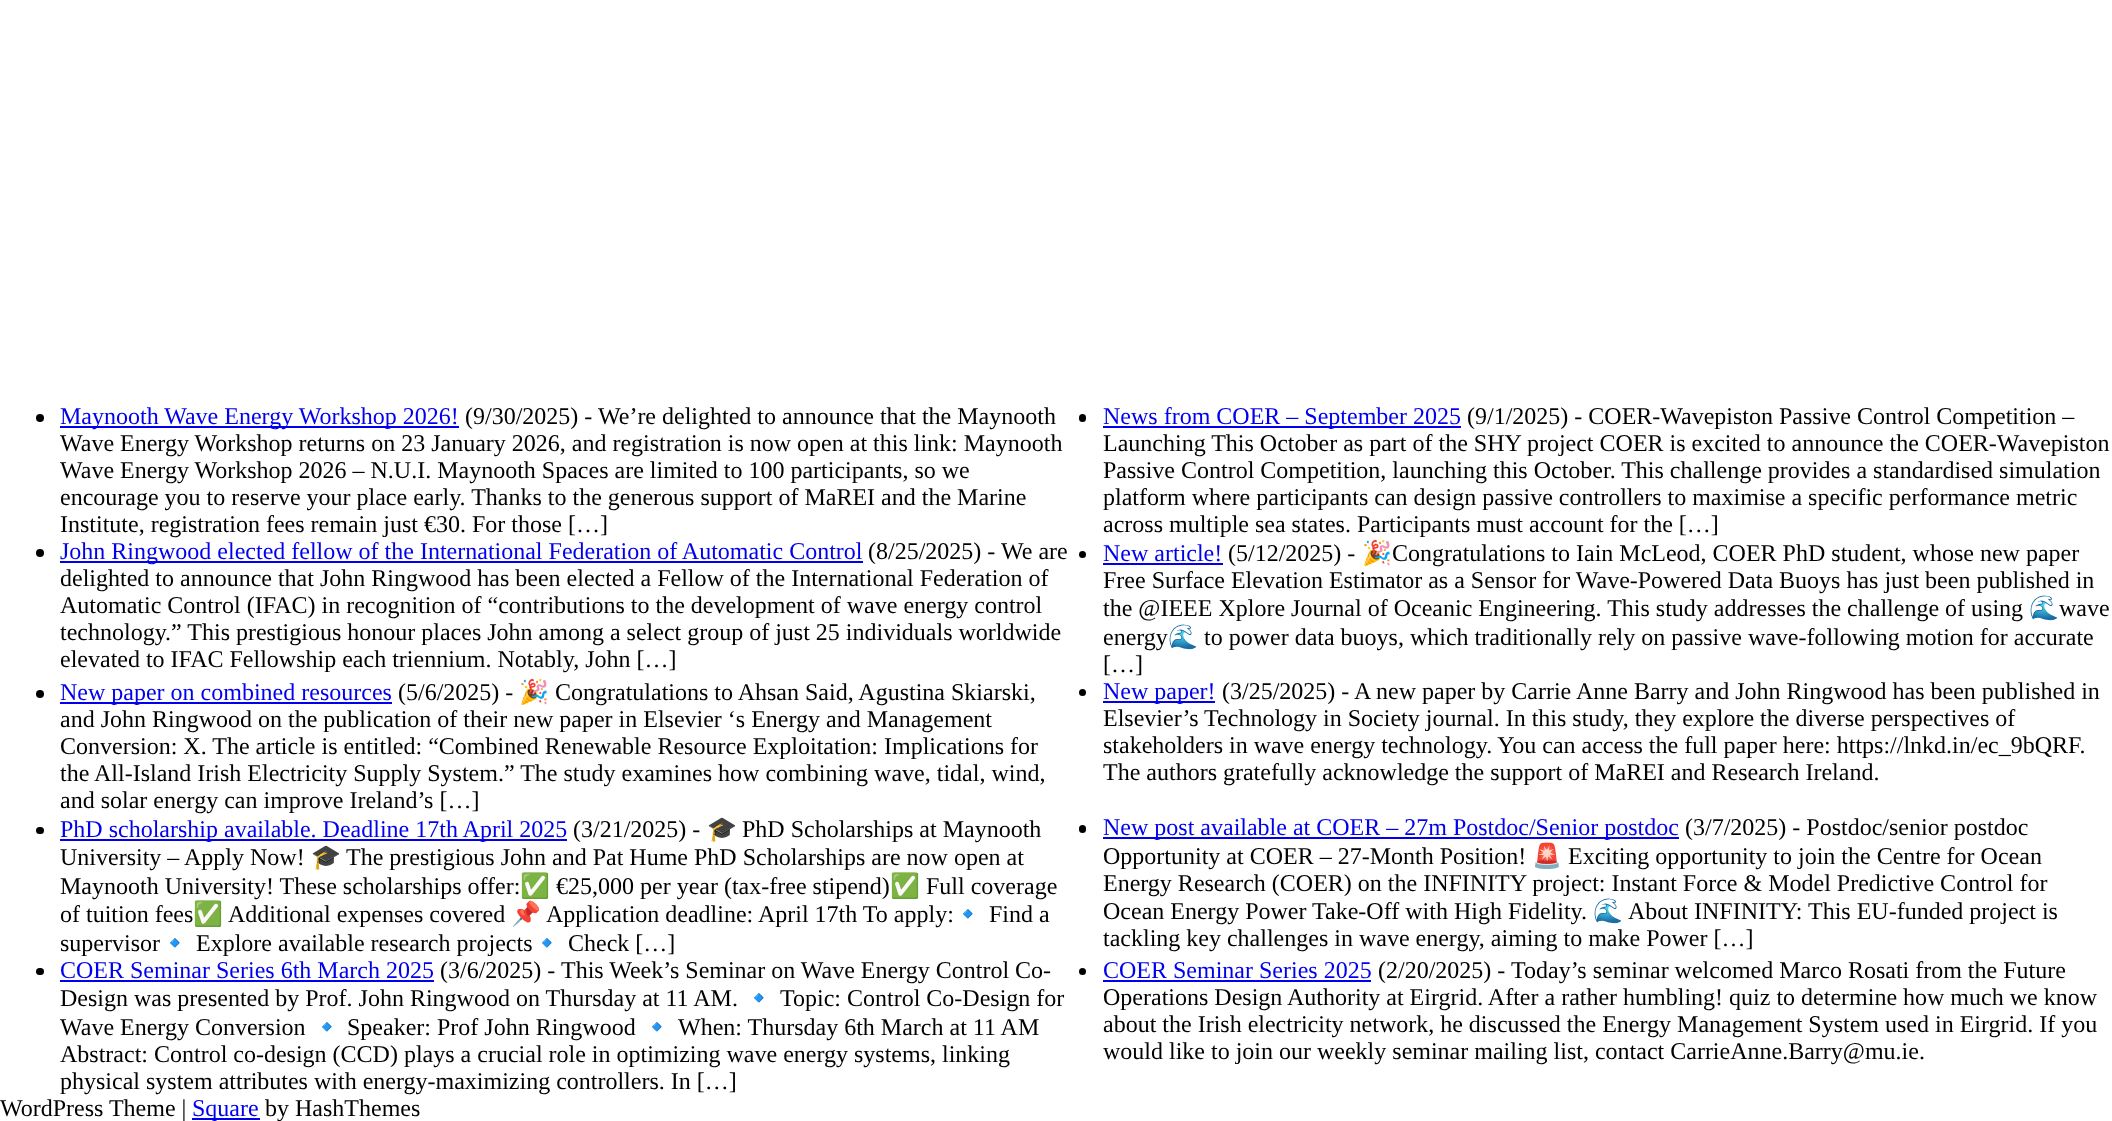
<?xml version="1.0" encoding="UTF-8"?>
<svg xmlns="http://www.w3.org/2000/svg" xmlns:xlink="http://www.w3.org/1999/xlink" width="2112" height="1121">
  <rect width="100%" height="100%" fill="#ffffff" />
  <circle cx="40" cy="418" r="4" fill="#000000" />
  <rect x="60" y="426" width="399" height="2" fill="#0000ee" />
  <rect x="1079" y="414" width="7" height="8" rx="3.5" fill="#000000" />
  <rect x="1103" y="426" width="358" height="2" fill="#0000ee" />
  <circle cx="40" cy="553" r="4" fill="#000000" />
  <rect x="60" y="561" width="803" height="2" fill="#0000ee" />
  <circle cx="1082.5" cy="554.5" r="3.5" fill="#000000" />
  <rect x="1103" y="563" width="120" height="2" fill="#0000ee" />
  <circle cx="40" cy="694" r="4" fill="#000000" />
  <rect x="60" y="702" width="332" height="2" fill="#0000ee" />
  <circle cx="1082.5" cy="692.5" r="3.5" fill="#000000" />
  <rect x="1103" y="701" width="112" height="2" fill="#0000ee" />
  <rect x="36" y="827" width="8" height="7" rx="3.5" fill="#000000" />
  <rect x="60" y="839" width="507" height="2" fill="#0000ee" />
  <rect x="1079" y="825" width="7" height="8" rx="3.5" fill="#000000" />
  <rect x="1103" y="837" width="576" height="2" fill="#0000ee" />
  <rect x="36" y="968" width="8" height="7" rx="3.5" fill="#000000" />
  <rect x="60" y="980" width="374" height="2" fill="#0000ee" />
  <circle cx="1082.5" cy="971.5" r="3.5" fill="#000000" />
  <rect x="1103" y="980" width="268" height="2" fill="#0000ee" />
  <rect x="192" y="1118" width="68" height="2" fill="#0000ee" />
  <text x="60" y="424" style="font-family: Liberation Serif; font-size: 24px; fill: #0000ee">Maynooth Wave Energy Workshop 2026!</text>
  <text x="465" y="424" style="font-family: Liberation Serif; font-size: 24px; fill: #000000">(9/30/2025) -</text>
  <text x="598" y="424" style="font-family: Liberation Serif; font-size: 24px; fill: #000000">We’re delighted to announce that the Maynooth</text>
  <text x="60" y="451" style="font-family: Liberation Serif; font-size: 24px; fill: #000000">Wave Energy Workshop returns on 23 January 2026, and registration is now open at this link: Maynooth</text>
  <text x="60" y="478" style="font-family: Liberation Serif; font-size: 24px; fill: #000000">Wave Energy Workshop 2026 – N.U.I. Maynooth Spaces are limited to 100 participants, so we</text>
  <text x="60" y="505" style="font-family: Liberation Serif; font-size: 24px; fill: #000000">encourage you to reserve your place early. Thanks to the generous support of MaREI and the Marine</text>
  <text x="60" y="532" style="font-family: Liberation Serif; font-size: 24px; fill: #000000">Institute, registration fees remain just €30. For those […]</text>
  <text x="1103" y="424" style="font-family: Liberation Serif; font-size: 24px; fill: #0000ee">News from COER – September 2025</text>
  <text x="1467" y="424" style="font-family: Liberation Serif; font-size: 24px; fill: #000000">(9/1/2025) - COER-Wavepiston Passive Control Competition –</text>
  <text x="1103" y="451" style="font-family: Liberation Serif; font-size: 24px; fill: #000000">Launching This October as part of the SHY project COER is excited to announce the COER-Wavepiston</text>
  <text x="1103" y="478" style="font-family: Liberation Serif; font-size: 24px; fill: #000000">Passive Control Competition, launching this October. This challenge provides a standardised simulation</text>
  <text x="1103" y="505" style="font-family: Liberation Serif; font-size: 24px; fill: #000000">platform where participants can design passive controllers to maximise a specific performance metric</text>
  <text x="1103" y="532" style="font-family: Liberation Serif; font-size: 24px; fill: #000000">across multiple sea states. Participants must account for the […]</text>
  <text x="60" y="559" style="font-family: Liberation Serif; font-size: 24px; fill: #0000ee">John Ringwood elected fellow of the International Federation of Automatic Control</text>
  <text x="868" y="559" style="font-family: Liberation Serif; font-size: 24px; fill: #000000">(8/25/2025) -</text>
  <text x="1001" y="559" style="font-family: Liberation Serif; font-size: 24px; fill: #000000">We are</text>
  <text x="60" y="586" style="font-family: Liberation Serif; font-size: 24px; fill: #000000">delighted to announce that John Ringwood has been elected a Fellow of the International Federation of</text>
  <text x="60" y="613" style="font-family: Liberation Serif; font-size: 24px; fill: #000000">Automatic Control (IFAC) in recognition of “contributions to the development of wave energy control</text>
  <text x="60" y="640" style="font-family: Liberation Serif; font-size: 24px; fill: #000000">technology.” This prestigious honour places John among a select group of just 25 individuals worldwide</text>
  <text x="60" y="667" style="font-family: Liberation Serif; font-size: 24px; fill: #000000">elevated to IFAC Fellowship each triennium. Notably, John […]</text>
  <text x="1103" y="561" style="font-family: Liberation Serif; font-size: 24px; fill: #0000ee">New article!</text>
  <text x="1228" y="561" style="font-family: Liberation Serif; font-size: 24px; fill: #000000">(5/12/2025) -</text>
  <text x="1362" y="561" style="font-family: Noto Color Emoji; font-size: 24px; fill: #000000">🎉</text>
  <text x="1392" y="561" style="font-family: Liberation Serif; font-size: 24px; fill: #000000">Congratulations to Iain McLeod, COER PhD student, whose new paper</text>
  <text x="1103" y="588" style="font-family: Liberation Serif; font-size: 24px; fill: #000000">Free Surface Elevation Estimator as a Sensor for Wave-Powered Data Buoys has just been published in</text>
  <text x="1103" y="616" style="font-family: Liberation Serif; font-size: 24px; fill: #000000">the @IEEE Xplore Journal of Oceanic Engineering. This study addresses the challenge of using</text>
  <text x="2029" y="616" style="font-family: Noto Color Emoji; font-size: 24px; fill: #000000">🌊</text>
  <text x="2059" y="616" style="font-family: Liberation Serif; font-size: 24px; fill: #000000">wave</text>
  <text x="1103" y="645" style="font-family: Liberation Serif; font-size: 24px; fill: #000000">energy</text>
  <text x="1168" y="645" style="font-family: Noto Color Emoji; font-size: 24px; fill: #000000">🌊</text>
  <text x="1204" y="645" style="font-family: Liberation Serif; font-size: 24px; fill: #000000">to power data buoys, which traditionally rely on passive wave-following motion for accurate</text>
  <text x="1103" y="672" style="font-family: Liberation Serif; font-size: 24px; fill: #000000">[…]</text>
  <text x="60" y="700" style="font-family: Liberation Serif; font-size: 24px; fill: #0000ee">New paper on combined resources</text>
  <text x="398" y="700" style="font-family: Liberation Serif; font-size: 24px; fill: #000000">(5/6/2025) -</text>
  <text x="519" y="700" style="font-family: Noto Color Emoji; font-size: 24px; fill: #000000">🎉</text>
  <text x="555" y="700" style="font-family: Liberation Serif; font-size: 24px; fill: #000000">Congratulations to Ahsan Said, Agustina Skiarski,</text>
  <text x="60" y="727" style="font-family: Liberation Serif; font-size: 24px; fill: #000000">and John Ringwood on the publication of their new paper in Elsevier ‘s Energy and Management</text>
  <text x="60" y="754" style="font-family: Liberation Serif; font-size: 24px; fill: #000000">Conversion: X. The article is entitled: “Combined Renewable Resource Exploitation: Implications for</text>
  <text x="60" y="781" style="font-family: Liberation Serif; font-size: 24px; fill: #000000">the All-Island Irish Electricity Supply System.” The study examines how combining wave, tidal, wind,</text>
  <text x="60" y="808" style="font-family: Liberation Serif; font-size: 24px; fill: #000000">and solar energy can improve Ireland’s […]</text>
  <text x="1103" y="699" style="font-family: Liberation Serif; font-size: 24px; fill: #0000ee">New paper!</text>
  <text x="1222" y="699" style="font-family: Liberation Serif; font-size: 24px; fill: #000000">(3/25/2025) -</text>
  <text x="1354" y="699" style="font-family: Liberation Serif; font-size: 24px; fill: #000000">A new paper by Carrie Anne Barry and John Ringwood has been published in</text>
  <text x="1103" y="726" style="font-family: Liberation Serif; font-size: 24px; fill: #000000">Elsevier’s Technology in Society journal. In this study, they explore the diverse perspectives of</text>
  <text x="1103" y="753" style="font-family: Liberation Serif; font-size: 24px; fill: #000000">stakeholders in wave energy technology. You can access the full paper here: https://lnkd.in/ec_9bQRF.</text>
  <text x="1103" y="780" style="font-family: Liberation Serif; font-size: 24px; fill: #000000">The authors gratefully acknowledge the support of MaREI and Research Ireland.</text>
  <text x="60" y="837" style="font-family: Liberation Serif; font-size: 24px; fill: #0000ee">PhD scholarship available. Deadline 17th April 2025</text>
  <text x="573" y="837" style="font-family: Liberation Serif; font-size: 24px; fill: #000000">(3/21/2025) -</text>
  <text x="707" y="837" style="font-family: Noto Color Emoji; font-size: 24px; fill: #000000">🎓</text>
  <text x="742" y="837" style="font-family: Liberation Serif; font-size: 24px; fill: #000000">PhD Scholarships at Maynooth</text>
  <text x="60" y="865" style="font-family: Liberation Serif; font-size: 24px; fill: #000000">University – Apply Now!</text>
  <text x="311" y="865" style="font-family: Noto Color Emoji; font-size: 24px; fill: #000000">🎓</text>
  <text x="346" y="865" style="font-family: Liberation Serif; font-size: 24px; fill: #000000">The prestigious John and Pat Hume PhD Scholarships are now open at</text>
  <text x="60" y="894" style="font-family: Liberation Serif; font-size: 24px; fill: #000000">Maynooth University! These scholarships offer:</text>
  <text x="520" y="894" style="font-family: Noto Color Emoji; font-size: 24px; fill: #000000">✅</text>
  <text x="556" y="894" style="font-family: Liberation Serif; font-size: 24px; fill: #000000">€25,000 per year (tax-free stipend)</text>
  <text x="890" y="894" style="font-family: Noto Color Emoji; font-size: 24px; fill: #000000">✅</text>
  <text x="926" y="894" style="font-family: Liberation Serif; font-size: 24px; fill: #000000">Full coverage</text>
  <text x="60" y="922" style="font-family: Liberation Serif; font-size: 24px; fill: #000000">of tuition fees</text>
  <text x="193" y="922" style="font-family: Noto Color Emoji; font-size: 24px; fill: #000000">✅</text>
  <text x="228" y="922" style="font-family: Liberation Serif; font-size: 24px; fill: #000000">Additional expenses covered</text>
  <text x="511" y="922" style="font-family: Noto Color Emoji; font-size: 24px; fill: #000000">📌</text>
  <text x="546" y="922" style="font-family: Liberation Serif; font-size: 24px; fill: #000000">Application deadline: April 17th To apply:</text>
  <text x="953" y="922" style="font-family: Noto Color Emoji; font-size: 24px; fill: #000000">🔹</text>
  <text x="989" y="922" style="font-family: Liberation Serif; font-size: 24px; fill: #000000">Find a</text>
  <text x="60" y="951" style="font-family: Liberation Serif; font-size: 24px; fill: #000000">supervisor</text>
  <text x="160" y="951" style="font-family: Noto Color Emoji; font-size: 24px; fill: #000000">🔹</text>
  <text x="196" y="951" style="font-family: Liberation Serif; font-size: 24px; fill: #000000">Explore available research projects</text>
  <text x="532" y="951" style="font-family: Noto Color Emoji; font-size: 24px; fill: #000000">🔹</text>
  <text x="568" y="951" style="font-family: Liberation Serif; font-size: 24px; fill: #000000">Check […]</text>
  <text x="1103" y="835" style="font-family: Liberation Serif; font-size: 24px; fill: #0000ee">New post available at COER – 27m Postdoc/Senior postdoc</text>
  <text x="1685" y="835" style="font-family: Liberation Serif; font-size: 24px; fill: #000000">(3/7/2025) - Postdoc/senior postdoc</text>
  <text x="1103" y="864" style="font-family: Liberation Serif; font-size: 24px; fill: #000000">Opportunity at COER – 27-Month Position!</text>
  <text x="1532" y="864" style="font-family: Noto Color Emoji; font-size: 24px; fill: #000000">🚨</text>
  <text x="1568" y="864" style="font-family: Liberation Serif; font-size: 24px; fill: #000000">Exciting opportunity to join the Centre for Ocean</text>
  <text x="1103" y="891" style="font-family: Liberation Serif; font-size: 24px; fill: #000000">Energy Research (COER) on the INFINITY project: Instant Force &amp; Model Predictive Control for</text>
  <text x="1103" y="919" style="font-family: Liberation Serif; font-size: 24px; fill: #000000">Ocean Energy Power Take-Off with High Fidelity.</text>
  <text x="1593" y="919" style="font-family: Noto Color Emoji; font-size: 24px; fill: #000000">🌊</text>
  <text x="1628" y="919" style="font-family: Liberation Serif; font-size: 24px; fill: #000000">About INFINITY: This EU-funded project is</text>
  <text x="1103" y="946" style="font-family: Liberation Serif; font-size: 24px; fill: #000000">tackling key challenges in wave energy, aiming to make Power […]</text>
  <text x="60" y="978" style="font-family: Liberation Serif; font-size: 24px; fill: #0000ee">COER Seminar Series 6th March 2025</text>
  <text x="440" y="978" style="font-family: Liberation Serif; font-size: 24px; fill: #000000">(3/6/2025) -</text>
  <text x="561" y="978" style="font-family: Liberation Serif; font-size: 24px; fill: #000000">This Week’s Seminar on Wave Energy Control Co-</text>
  <text x="60" y="1006" style="font-family: Liberation Serif; font-size: 24px; fill: #000000">Design was presented by Prof. John Ringwood on Thursday at 11 AM.</text>
  <text x="744" y="1006" style="font-family: Noto Color Emoji; font-size: 24px; fill: #000000">🔹</text>
  <text x="780" y="1006" style="font-family: Liberation Serif; font-size: 24px; fill: #000000">Topic: Control Co-Design for</text>
  <text x="60" y="1035" style="font-family: Liberation Serif; font-size: 24px; fill: #000000">Wave Energy Conversion</text>
  <text x="312" y="1035" style="font-family: Noto Color Emoji; font-size: 24px; fill: #000000">🔹</text>
  <text x="347" y="1035" style="font-family: Liberation Serif; font-size: 24px; fill: #000000">Speaker: Prof John Ringwood</text>
  <text x="642" y="1035" style="font-family: Noto Color Emoji; font-size: 24px; fill: #000000">🔹</text>
  <text x="678" y="1035" style="font-family: Liberation Serif; font-size: 24px; fill: #000000">When: Thursday 6th March at 11 AM</text>
  <text x="60" y="1062" style="font-family: Liberation Serif; font-size: 24px; fill: #000000">Abstract: Control co-design (CCD) plays a crucial role in optimizing wave energy systems, linking</text>
  <text x="60" y="1089" style="font-family: Liberation Serif; font-size: 24px; fill: #000000">physical system attributes with energy-maximizing controllers. In […]</text>
  <text x="1103" y="978" style="font-family: Liberation Serif; font-size: 24px; fill: #0000ee">COER Seminar Series 2025</text>
  <text x="1378" y="978" style="font-family: Liberation Serif; font-size: 24px; fill: #000000">(2/20/2025) -</text>
  <text x="1511" y="978" style="font-family: Liberation Serif; font-size: 24px; fill: #000000">Today’s seminar welcomed Marco Rosati from the Future</text>
  <text x="1103" y="1005" style="font-family: Liberation Serif; font-size: 24px; fill: #000000">Operations Design Authority at Eirgrid. After a rather humbling! quiz to determine how much we know</text>
  <text x="1103" y="1032" style="font-family: Liberation Serif; font-size: 24px; fill: #000000">about the Irish electricity network, he discussed the Energy Management System used in Eirgrid. If you</text>
  <text x="1103" y="1059" style="font-family: Liberation Serif; font-size: 24px; fill: #000000">would like to join our weekly seminar mailing list, contact CarrieAnne.Barry@mu.ie.</text>
  <text x="0" y="1116" style="font-family: Liberation Serif; font-size: 24px; fill: #000000">WordPress Theme |</text>
  <text x="192" y="1116" style="font-family: Liberation Serif; font-size: 24px; fill: #0000ee">Square</text>
  <text x="265" y="1116" style="font-family: Liberation Serif; font-size: 24px; fill: #000000">by HashThemes</text>
</svg>
